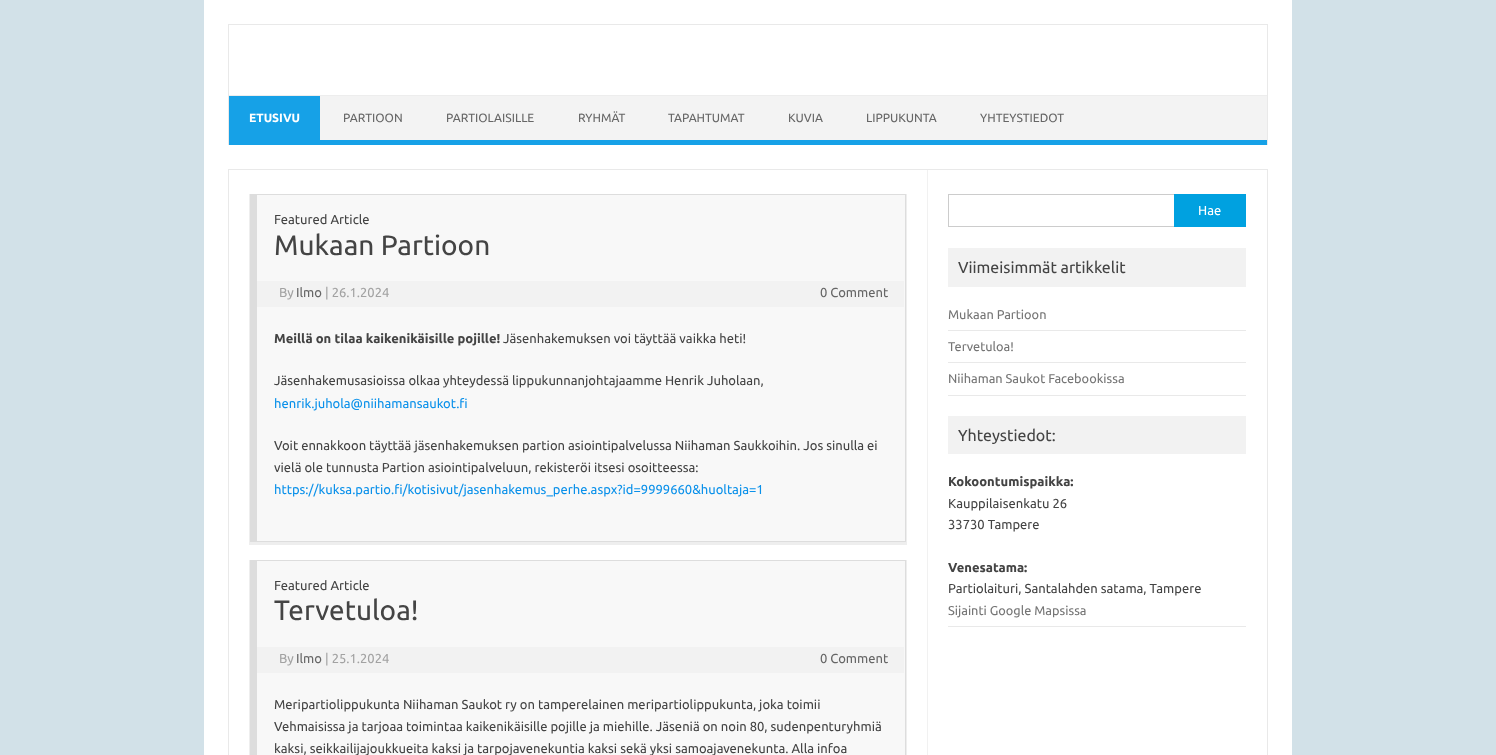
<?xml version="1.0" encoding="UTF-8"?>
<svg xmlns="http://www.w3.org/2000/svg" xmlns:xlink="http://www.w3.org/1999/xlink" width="1496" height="755">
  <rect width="100%" height="100%" fill="#d2e1e8" />
  <rect x="204" width="1088" height="755" fill="#ffffff" />
  <rect x="228" y="24" width="1040" height="1" fill="#e9e9e9" />
  <rect x="1267" y="24" width="1" height="121" fill="#e9e9e9" />
  <rect x="228" y="24" width="1" height="121" fill="#e9e9e9" />
  <rect x="320" y="96" width="947" height="44" fill="#f3f3f3" />
  <rect x="229" y="95" width="1038" height="1" fill="#ededed" />
  <rect x="229" y="140" width="1038" height="5" fill="#16a1e7" />
  <rect x="229" y="96" width="91" height="44" fill="#16a1e7" />
  <rect x="228.5" y="169.5" width="1039" height="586" fill="none" stroke="#e9e9e9" />
  <rect x="927" y="170" width="1" height="585" fill="#f1f1f1" />
  <rect x="249" y="194" width="658" height="351" fill="#eeeeee" filter="blur(0.5px)" />
  <rect x="257" y="195" width="648" height="346" fill="#f8f8f8" />
  <rect x="250" y="194" width="656" height="1" fill="#dddddd" />
  <rect x="905" y="194" width="1" height="348" fill="#dddddd" />
  <rect x="250" y="541" width="656" height="1" fill="#dddddd" />
  <rect x="250" y="194" width="7" height="348" fill="#dddddd" />
  <rect x="257" y="281" width="647" height="26" fill="#f2f2f2" />
  <rect x="249" y="560" width="658" height="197" fill="#eeeeee" filter="blur(0.5px)" />
  <rect x="257" y="561" width="648" height="194" fill="#f8f8f8" />
  <rect x="250" y="560" width="656" height="1" fill="#dddddd" />
  <rect x="905" y="560" width="1" height="195" fill="#dddddd" />
  <rect x="250" y="560" width="7" height="195" fill="#dddddd" />
  <rect x="257" y="647" width="647" height="26" fill="#f2f2f2" />
  <rect x="948.5" y="194.5" width="227" height="32" fill="none" stroke="#cccccc" />
  <rect x="1174" y="194" width="72" height="33" fill="#00a1e0" />
  <rect x="948" y="248" width="298" height="39" fill="#f2f2f2" />
  <rect x="948" y="330" width="298" height="1" fill="#e9e9e9" />
  <rect x="948" y="362" width="298" height="1" fill="#e9e9e9" />
  <rect x="948" y="395" width="298" height="1" fill="#e9e9e9" />
  <rect x="948" y="416" width="298" height="38" fill="#f2f2f2" />
  <rect x="948" y="626" width="298" height="1" fill="#e9e9e9" />
  <text x="249" y="122" style="font-family: Ubuntu; font-size: 12px; font-weight: bold; fill: #ffffff">ETUSIVU</text>
  <text x="343" y="122" style="font-family: Ubuntu; font-size: 12px; fill: #666666">PARTIOON</text>
  <text x="446" y="122" style="font-family: Ubuntu; font-size: 12px; fill: #666666">PARTIOLAISILLE</text>
  <text x="578" y="122" style="font-family: Ubuntu; font-size: 12px; fill: #666666">RYHMÄT</text>
  <text x="668" y="122" style="font-family: Ubuntu; font-size: 12px; fill: #666666">TAPAHTUMAT</text>
  <text x="788" y="122" style="font-family: Ubuntu; font-size: 12px; fill: #666666">KUVIA</text>
  <text x="866" y="122" style="font-family: Ubuntu; font-size: 12px; fill: #666666">LIPPUKUNTA</text>
  <text x="980" y="122" style="font-family: Ubuntu; font-size: 12px; fill: #666666">YHTEYSTIEDOT</text>
  <text x="274" y="224" style="font-family: Ubuntu; font-size: 13px; fill: #444444">Featured Article</text>
  <text x="274" y="255" style="font-family: Ubuntu; font-size: 28px; fill: #444444">Mukaan Partioon</text>
  <text x="279" y="297" style="font-family: Ubuntu; font-size: 13px; fill: #a2a2a2">By</text>
  <text x="296" y="297" style="font-family: Ubuntu; font-size: 13px; fill: #666666">Ilmo</text>
  <text x="325" y="297" style="font-family: Ubuntu; font-size: 13px; fill: #a2a2a2">| 26.1.2024</text>
  <text x="820" y="297" style="font-family: Ubuntu; font-size: 13px; fill: #666666">0 Comment</text>
  <text x="274" y="343" style="font-family: Ubuntu; font-size: 13px; font-weight: bold; fill: #444444">Meillä on tilaa kaikenikäisille pojille!</text>
  <text x="503" y="343" style="font-family: Ubuntu; font-size: 13px; fill: #444444">Jäsenhakemuksen voi täyttää vaikka heti!</text>
  <text x="274" y="385" style="font-family: Ubuntu; font-size: 13px; fill: #444444">Jäsenhakemusasioissa olkaa yhteydessä lippukunnanjohtajaamme Henrik Juholaan,</text>
  <text x="274" y="408" style="font-family: Ubuntu; font-size: 13px; fill: #0b91ea">henrik.juhola@niihamansaukot.fi</text>
  <text x="274" y="450" style="font-family: Ubuntu; font-size: 13px; fill: #444444">Voit ennakkoon täyttää jäsenhakemuksen partion asiointipalvelussa Niihaman Saukkoihin. Jos sinulla ei</text>
  <text x="274" y="472" style="font-family: Ubuntu; font-size: 13px; fill: #444444">vielä ole tunnusta Partion asiointipalveluun, rekisteröi itsesi osoitteessa:</text>
  <text x="274" y="494" style="font-family: Ubuntu; font-size: 13px; fill: #0b91ea">https://kuksa.partio.fi/kotisivut/jasenhakemus_perhe.aspx?id=9999660&amp;huoltaja=1</text>
  <text x="274" y="590" style="font-family: Ubuntu; font-size: 13px; fill: #444444">Featured Article</text>
  <text x="274" y="620" style="font-family: Ubuntu; font-size: 28px; fill: #444444">Tervetuloa!</text>
  <text x="279" y="663" style="font-family: Ubuntu; font-size: 13px; fill: #a2a2a2">By</text>
  <text x="296" y="663" style="font-family: Ubuntu; font-size: 13px; fill: #666666">Ilmo</text>
  <text x="325" y="663" style="font-family: Ubuntu; font-size: 13px; fill: #a2a2a2">| 25.1.2024</text>
  <text x="820" y="663" style="font-family: Ubuntu; font-size: 13px; fill: #666666">0 Comment</text>
  <text x="274" y="709" style="font-family: Ubuntu; font-size: 13px; fill: #444444">Meripartiolippukunta Niihaman Saukot ry on tamperelainen meripartiolippukunta, joka toimii</text>
  <text x="274" y="731" style="font-family: Ubuntu; font-size: 13px; fill: #444444">Vehmaisissa ja tarjoaa toimintaa kaikenikäisille pojille ja miehille. Jäseniä on noin 80, sudenpenturyhmiä</text>
  <text x="274" y="753" style="font-family: Ubuntu; font-size: 13px; fill: #444444">kaksi, seikkailijajoukkueita kaksi ja tarpojavenekuntia kaksi sekä yksi samoajavenekunta. Alla infoa</text>
  <text x="1198" y="215" style="font-family: Ubuntu; font-size: 13px; fill: #ffffff">Hae</text>
  <text x="958" y="273" style="font-family: Ubuntu; font-size: 16px; fill: #444444">Viimeisimmät artikkelit</text>
  <text x="948" y="319" style="font-family: Ubuntu; font-size: 12.75px; fill: #757575">Mukaan Partioon</text>
  <text x="948" y="351" style="font-family: Ubuntu; font-size: 12.75px; fill: #757575">Tervetuloa!</text>
  <text x="948" y="383" style="font-family: Ubuntu; font-size: 12.75px; fill: #757575">Niihaman Saukot Facebookissa</text>
  <text x="958" y="441" style="font-family: Ubuntu; font-size: 16px; fill: #444444">Yhteystiedot:</text>
  <text x="948" y="486" style="font-family: Ubuntu; font-size: 13px; font-weight: bold; fill: #444444">Kokoontumispaikka:</text>
  <text x="948" y="508" style="font-family: Ubuntu; font-size: 13px; fill: #444444">Kauppilaisenkatu 26</text>
  <text x="948" y="529" style="font-family: Ubuntu; font-size: 13px; fill: #444444">33730 Tampere</text>
  <text x="948" y="572" style="font-family: Ubuntu; font-size: 13px; font-weight: bold; fill: #444444">Venesatama:</text>
  <text x="948" y="593" style="font-family: Ubuntu; font-size: 13px; fill: #444444">Partiolaituri, Santalahden satama, Tampere</text>
  <text x="948" y="615" style="font-family: Ubuntu; font-size: 12.75px; fill: #757575">Sijainti Google Mapsissa</text>
</svg>
